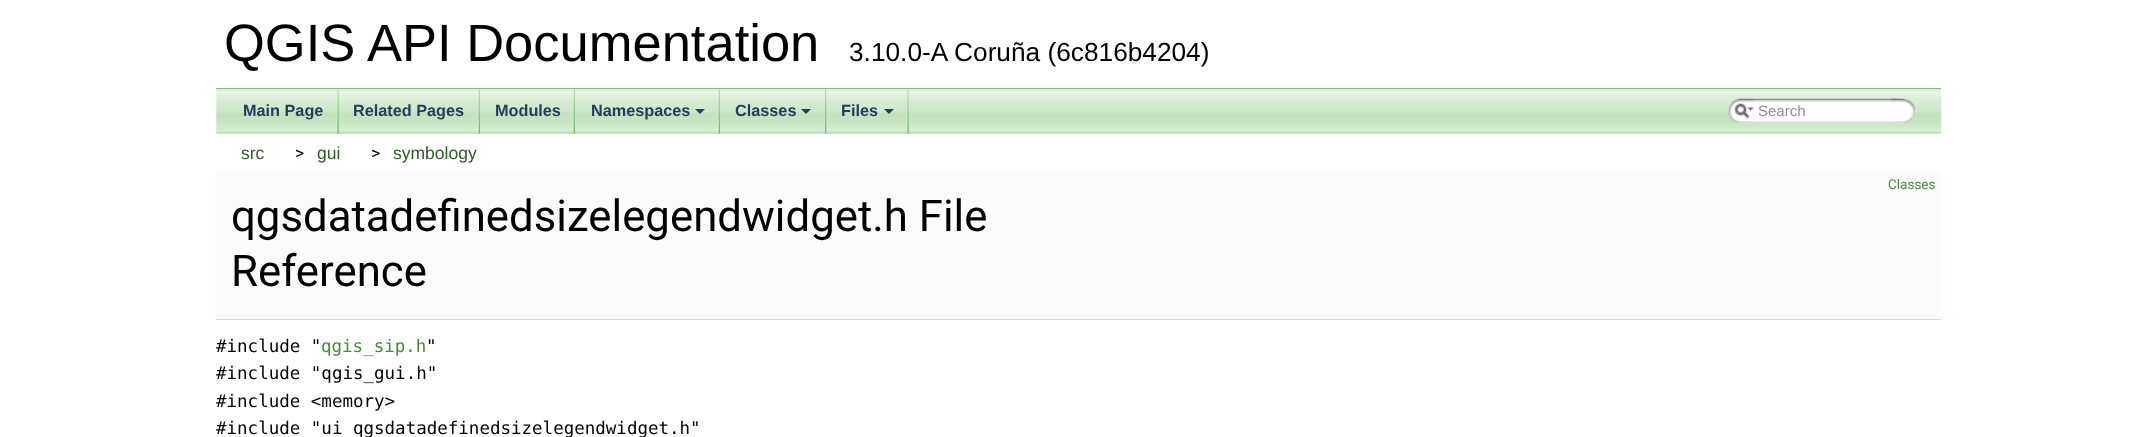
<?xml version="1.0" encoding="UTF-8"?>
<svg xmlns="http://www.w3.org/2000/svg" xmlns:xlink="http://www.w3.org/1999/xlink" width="2156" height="437">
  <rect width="100%" height="100%" fill="#ffffff" />
  <rect x="216" y="88" width="1725" height="1" fill="#5fb453" />
  <image x="216" y="88" width="1726" height="46" xlink:href="image1.png" />
  <image x="337" y="88" width="2" height="46" xlink:href="image2.png" />
  <image x="478" y="88" width="2" height="46" xlink:href="image3.png" />
  <image x="573" y="88" width="2" height="46" xlink:href="image3.png" />
  <image x="718" y="88" width="2" height="46" xlink:href="image3.png" />
  <path d="M 695 109 h 10 l -5 5 z" fill="#283a5d" />
  <image x="825" y="88" width="2" height="46" xlink:href="image4.png" />
  <path d="M 801 109 h 10 l -5 5 z" fill="#283a5d" />
  <image x="907" y="88" width="2" height="46" xlink:href="image2.png" />
  <path d="M 884 109 h 10 l -5 5 z" fill="#283a5d" />
  <image x="1728" y="98" width="26" height="25" xlink:href="image5.png" />
  <image x="1734" y="103" width="20" height="16" xlink:href="image6.png" />
  <image x="1753" y="98" width="145" height="25" xlink:href="image7.png" />
  <image x="1891" y="98" width="24" height="25" xlink:href="image8.png" />
  <rect x="216" y="171" width="1725" height="148" fill="#f9fcf9" />
  <rect x="216" y="319" width="1725" height="1" fill="#c8e5c4" />
  <text x="224" y="61" style="font-family: Liberation Sans; font-size: 52.5px; fill: #000000">QGIS API Documentation</text>
  <text x="849" y="61" style="font-family: Liberation Sans; font-size: 26.25px; fill: #000000">3.10.0-A Coruña (6c816b4204)</text>
  <text x="243" y="116" style="font-family: Liberation Sans; font-size: 16.25px; font-weight: bold; fill: #283a5d">Main Page</text>
  <text x="353" y="116" style="font-family: Liberation Sans; font-size: 16.25px; font-weight: bold; fill: #283a5d">Related Pages</text>
  <text x="495" y="116" style="font-family: Liberation Sans; font-size: 16.25px; font-weight: bold; fill: #283a5d">Modules</text>
  <text x="591" y="116" style="font-family: Liberation Sans; font-size: 16.25px; font-weight: bold; fill: #283a5d">Namespaces</text>
  <text x="735" y="116" style="font-family: Liberation Sans; font-size: 16.25px; font-weight: bold; fill: #283a5d">Classes</text>
  <text x="841" y="116" style="font-family: Liberation Sans; font-size: 16.25px; font-weight: bold; fill: #283a5d">Files</text>
  <text x="1758" y="116" style="font-family: Liberation Sans; font-size: 15px; fill: #909090">Search</text>
  <text x="241" y="159" style="font-family: Liberation Sans; font-size: 17.5px; fill: #2e5d28">src</text>
  <text x="295" y="159" style="font-family: Roboto; font-size: 17.5px; fill: #000000">&gt;</text>
  <text x="317" y="159" style="font-family: Liberation Sans; font-size: 17.5px; fill: #2e5d28">gui</text>
  <text x="371" y="159" style="font-family: Roboto; font-size: 17.5px; fill: #000000">&gt;</text>
  <text x="393" y="159" style="font-family: Liberation Sans; font-size: 17.5px; fill: #2e5d28">symbology</text>
  <text x="1888" y="189" style="font-family: Roboto; font-size: 13.5px; fill: #468c3d">Classes</text>
  <text x="231" y="231" style="font-family: Roboto; font-size: 43.75px; fill: #000000">qgsdatadefinedsizelegendwidget.h File</text>
  <text x="231" y="286" style="font-family: Roboto; font-size: 43.75px; fill: #000000">Reference</text>
  <text x="216" y="352" style="font-family: DejaVu Sans Mono; font-size: 17.5px; fill: #000000">#include "</text>
  <text x="321" y="352" style="font-family: DejaVu Sans Mono; font-size: 17.5px; fill: #468c3d">qgis_sip.h</text>
  <text x="426" y="352" style="font-family: DejaVu Sans Mono; font-size: 17.5px; fill: #000000">"</text>
  <text x="216" y="379" style="font-family: DejaVu Sans Mono; font-size: 17.5px; fill: #000000">#include "qgis_gui.h"</text>
  <text x="216" y="407" style="font-family: DejaVu Sans Mono; font-size: 17.5px; fill: #000000">#include &lt;memory&gt;</text>
  <text x="216" y="434" style="font-family: DejaVu Sans Mono; font-size: 17.5px; fill: #000000">#include "ui_qgsdatadefinedsizelegendwidget.h"</text>
</svg>
